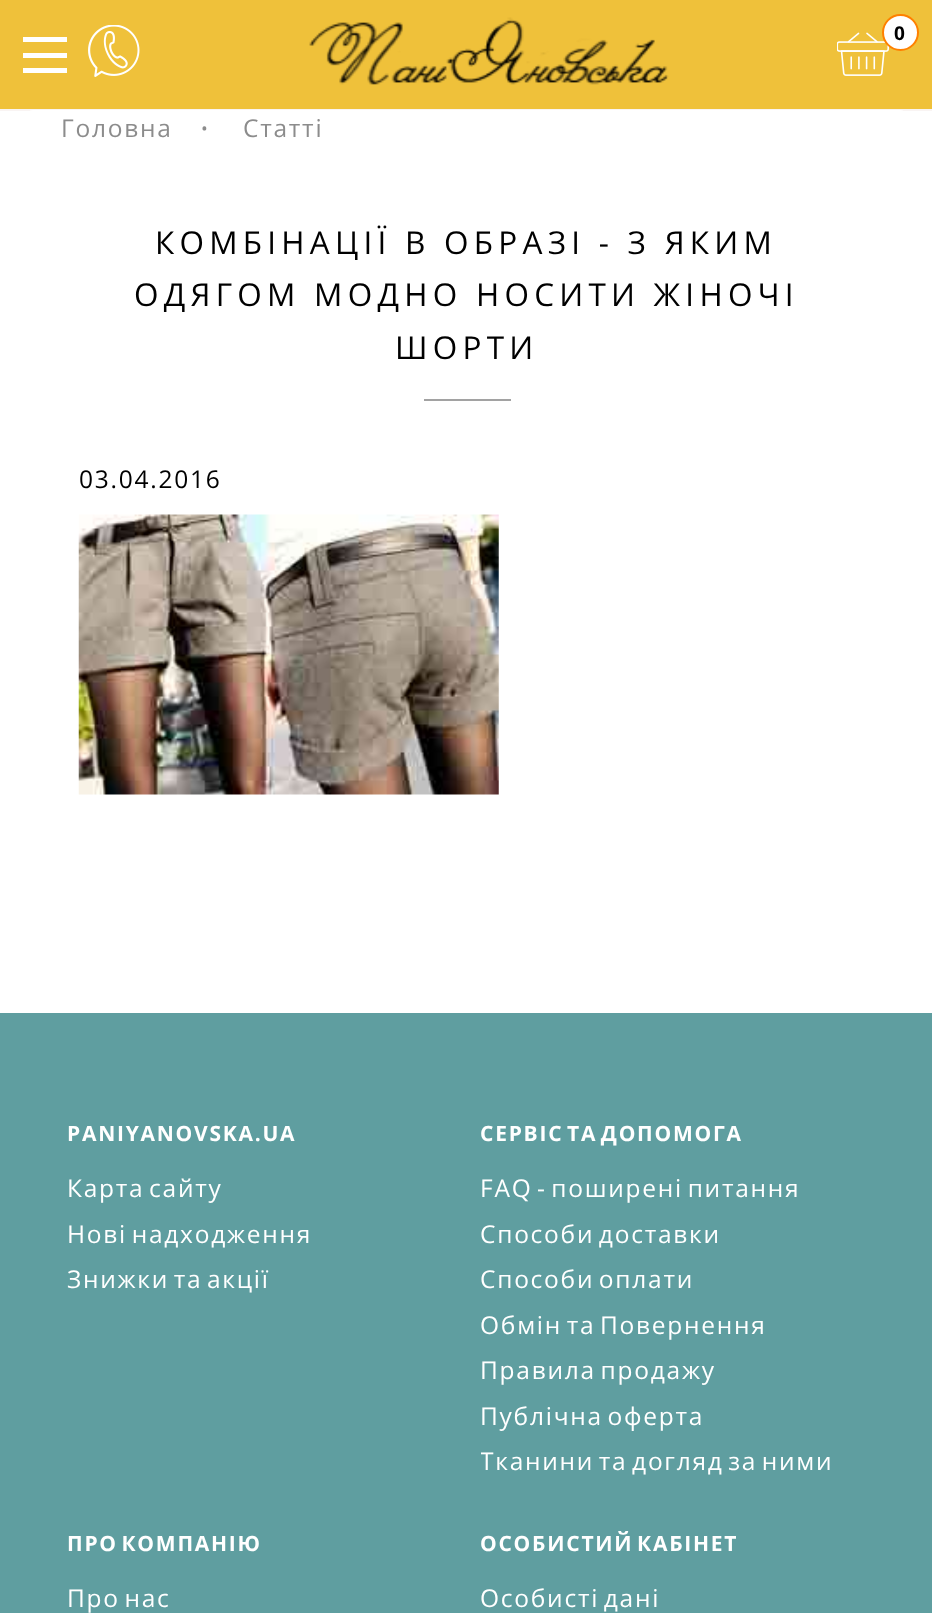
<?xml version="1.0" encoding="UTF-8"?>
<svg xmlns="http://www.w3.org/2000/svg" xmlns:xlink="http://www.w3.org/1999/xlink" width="932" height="1613">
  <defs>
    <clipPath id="clip1"><rect x="481" y="1439" width="385" height="45" /></clipPath>
  </defs>
  <rect width="100%" height="100%" fill="#ffffff" />
  <rect width="932" height="109" fill="#efc13a" />
  <rect x="23" y="37" width="44" height="5" fill="#ffffff" />
  <rect x="23" y="53" width="44" height="5" fill="#ffffff" />
  <rect x="23" y="68" width="44" height="5" fill="#ffffff" />
  <image x="88" y="25" width="52" height="52" xlink:href="image1.png" />
  <image x="309" y="17" width="360" height="68" xlink:href="image2.png" />
  <image x="837" y="32" width="52" height="44" xlink:href="image3.png" />
  <circle cx="900.5" cy="32.5" r="17.5" fill="#ffffff" stroke="#ff8000" stroke-width="2" />
  <rect y="109" width="932" height="2" fill="#f9f4f3" />
  <rect x="26" y="110" width="881" height="35" rx="7" fill="#ffffff" />
  <rect x="424" y="399" width="87" height="2" fill="#a2a2a2" />
  <image x="78" y="514" width="421" height="281" xlink:href="image4.png" />
  <rect y="1013" width="932" height="600" fill="#5f9ea0" />
  <text x="894" y="40" style="font-family: Open Sans; font-size: 19px; font-weight: bold; letter-spacing: 1.75px; fill: #000000">0</text>
  <text x="61" y="137" style="font-family: Open Sans; font-size: 24.5px; letter-spacing: 1.75px; fill: #8c8c8c">Головна</text>
  <text x="201" y="135" style="font-family: Open Sans; font-size: 18px; letter-spacing: 1.75px; fill: #8c8c8c">•</text>
  <text x="243" y="137" style="font-family: Open Sans; font-size: 24.5px; letter-spacing: 1.75px; fill: #8c8c8c">Статті</text>
  <text x="155" y="254" style="font-family: Open Sans; font-size: 31.5px; letter-spacing: 5.25px; fill: #000000">КОМБІНАЦІЇ В ОБРАЗІ - З ЯКИМ</text>
  <text x="134" y="306" style="font-family: Open Sans; font-size: 31.5px; letter-spacing: 5.25px; fill: #000000">ОДЯГОМ МОДНО НОСИТИ ЖІНОЧІ</text>
  <text x="395" y="359" style="font-family: Open Sans; font-size: 31.5px; letter-spacing: 5.25px; fill: #000000">ШОРТИ</text>
  <text x="79" y="488" style="font-family: Open Sans; font-size: 24.5px; letter-spacing: 1.75px; fill: #000000">03.04.2016</text>
  <text x="67" y="1141" style="font-family: Open Sans; font-size: 21px; font-weight: bold; letter-spacing: 1.75px; fill: #ffffff">PANIYANOVSKA.UA</text>
  <text x="67" y="1197" word-spacing="-3.5" style="font-family: Open Sans; font-size: 24.5px; letter-spacing: 1.75px; fill: #ffffff">Карта сайту</text>
  <text x="67" y="1243" word-spacing="-3.5" style="font-family: Open Sans; font-size: 24.5px; letter-spacing: 1.75px; fill: #ffffff">Нові надходження</text>
  <text x="67" y="1288" word-spacing="-3.5" style="font-family: Open Sans; font-size: 24.5px; letter-spacing: 1.75px; fill: #ffffff">Знижки та акції</text>
  <text x="480" y="1141" word-spacing="-3.5" style="font-family: Open Sans; font-size: 21px; font-weight: bold; letter-spacing: 1.75px; fill: #ffffff">СЕРВІС ТА ДОПОМОГА</text>
  <text x="480" y="1197" word-spacing="-3.5" style="font-family: Open Sans; font-size: 24.5px; letter-spacing: 1.75px; fill: #ffffff">FAQ - поширені питання</text>
  <text x="480" y="1243" word-spacing="-3.5" style="font-family: Open Sans; font-size: 24.5px; letter-spacing: 1.75px; fill: #ffffff">Способи доставки</text>
  <text x="480" y="1288" word-spacing="-3.5" style="font-family: Open Sans; font-size: 24.5px; letter-spacing: 1.75px; fill: #ffffff">Способи оплати</text>
  <text x="480" y="1334" word-spacing="-3.5" style="font-family: Open Sans; font-size: 24.5px; letter-spacing: 1.75px; fill: #ffffff">Обмін та Повернення</text>
  <text x="480" y="1379" word-spacing="-3.5" style="font-family: Open Sans; font-size: 24.5px; letter-spacing: 1.75px; fill: #ffffff">Правила продажу</text>
  <text x="480" y="1425" word-spacing="-3.5" style="font-family: Open Sans; font-size: 24.5px; letter-spacing: 1.75px; fill: #ffffff">Публічна оферта</text>
  <g clip-path="url(#clip1)">
    <text x="480" y="1470" word-spacing="-3.5" style="font-family: Open Sans; font-size: 24.5px; letter-spacing: 1.75px; fill: #ffffff">Тканини та догляд за ними</text>
  </g>
  <text x="67" y="1551" word-spacing="-3.5" style="font-family: Open Sans; font-size: 21px; font-weight: bold; letter-spacing: 1.75px; fill: #ffffff">ПРО КОМПАНІЮ</text>
  <text x="67" y="1607" word-spacing="-3.5" style="font-family: Open Sans; font-size: 24.5px; letter-spacing: 1.75px; fill: #ffffff">Про нас</text>
  <text x="480" y="1551" word-spacing="-3.5" style="font-family: Open Sans; font-size: 21px; font-weight: bold; letter-spacing: 1.75px; fill: #ffffff">ОСОБИСТИЙ КАБІНЕТ</text>
  <text x="480" y="1607" word-spacing="-3.5" style="font-family: Open Sans; font-size: 24.5px; letter-spacing: 1.75px; fill: #ffffff">Особисті дані</text>
</svg>
